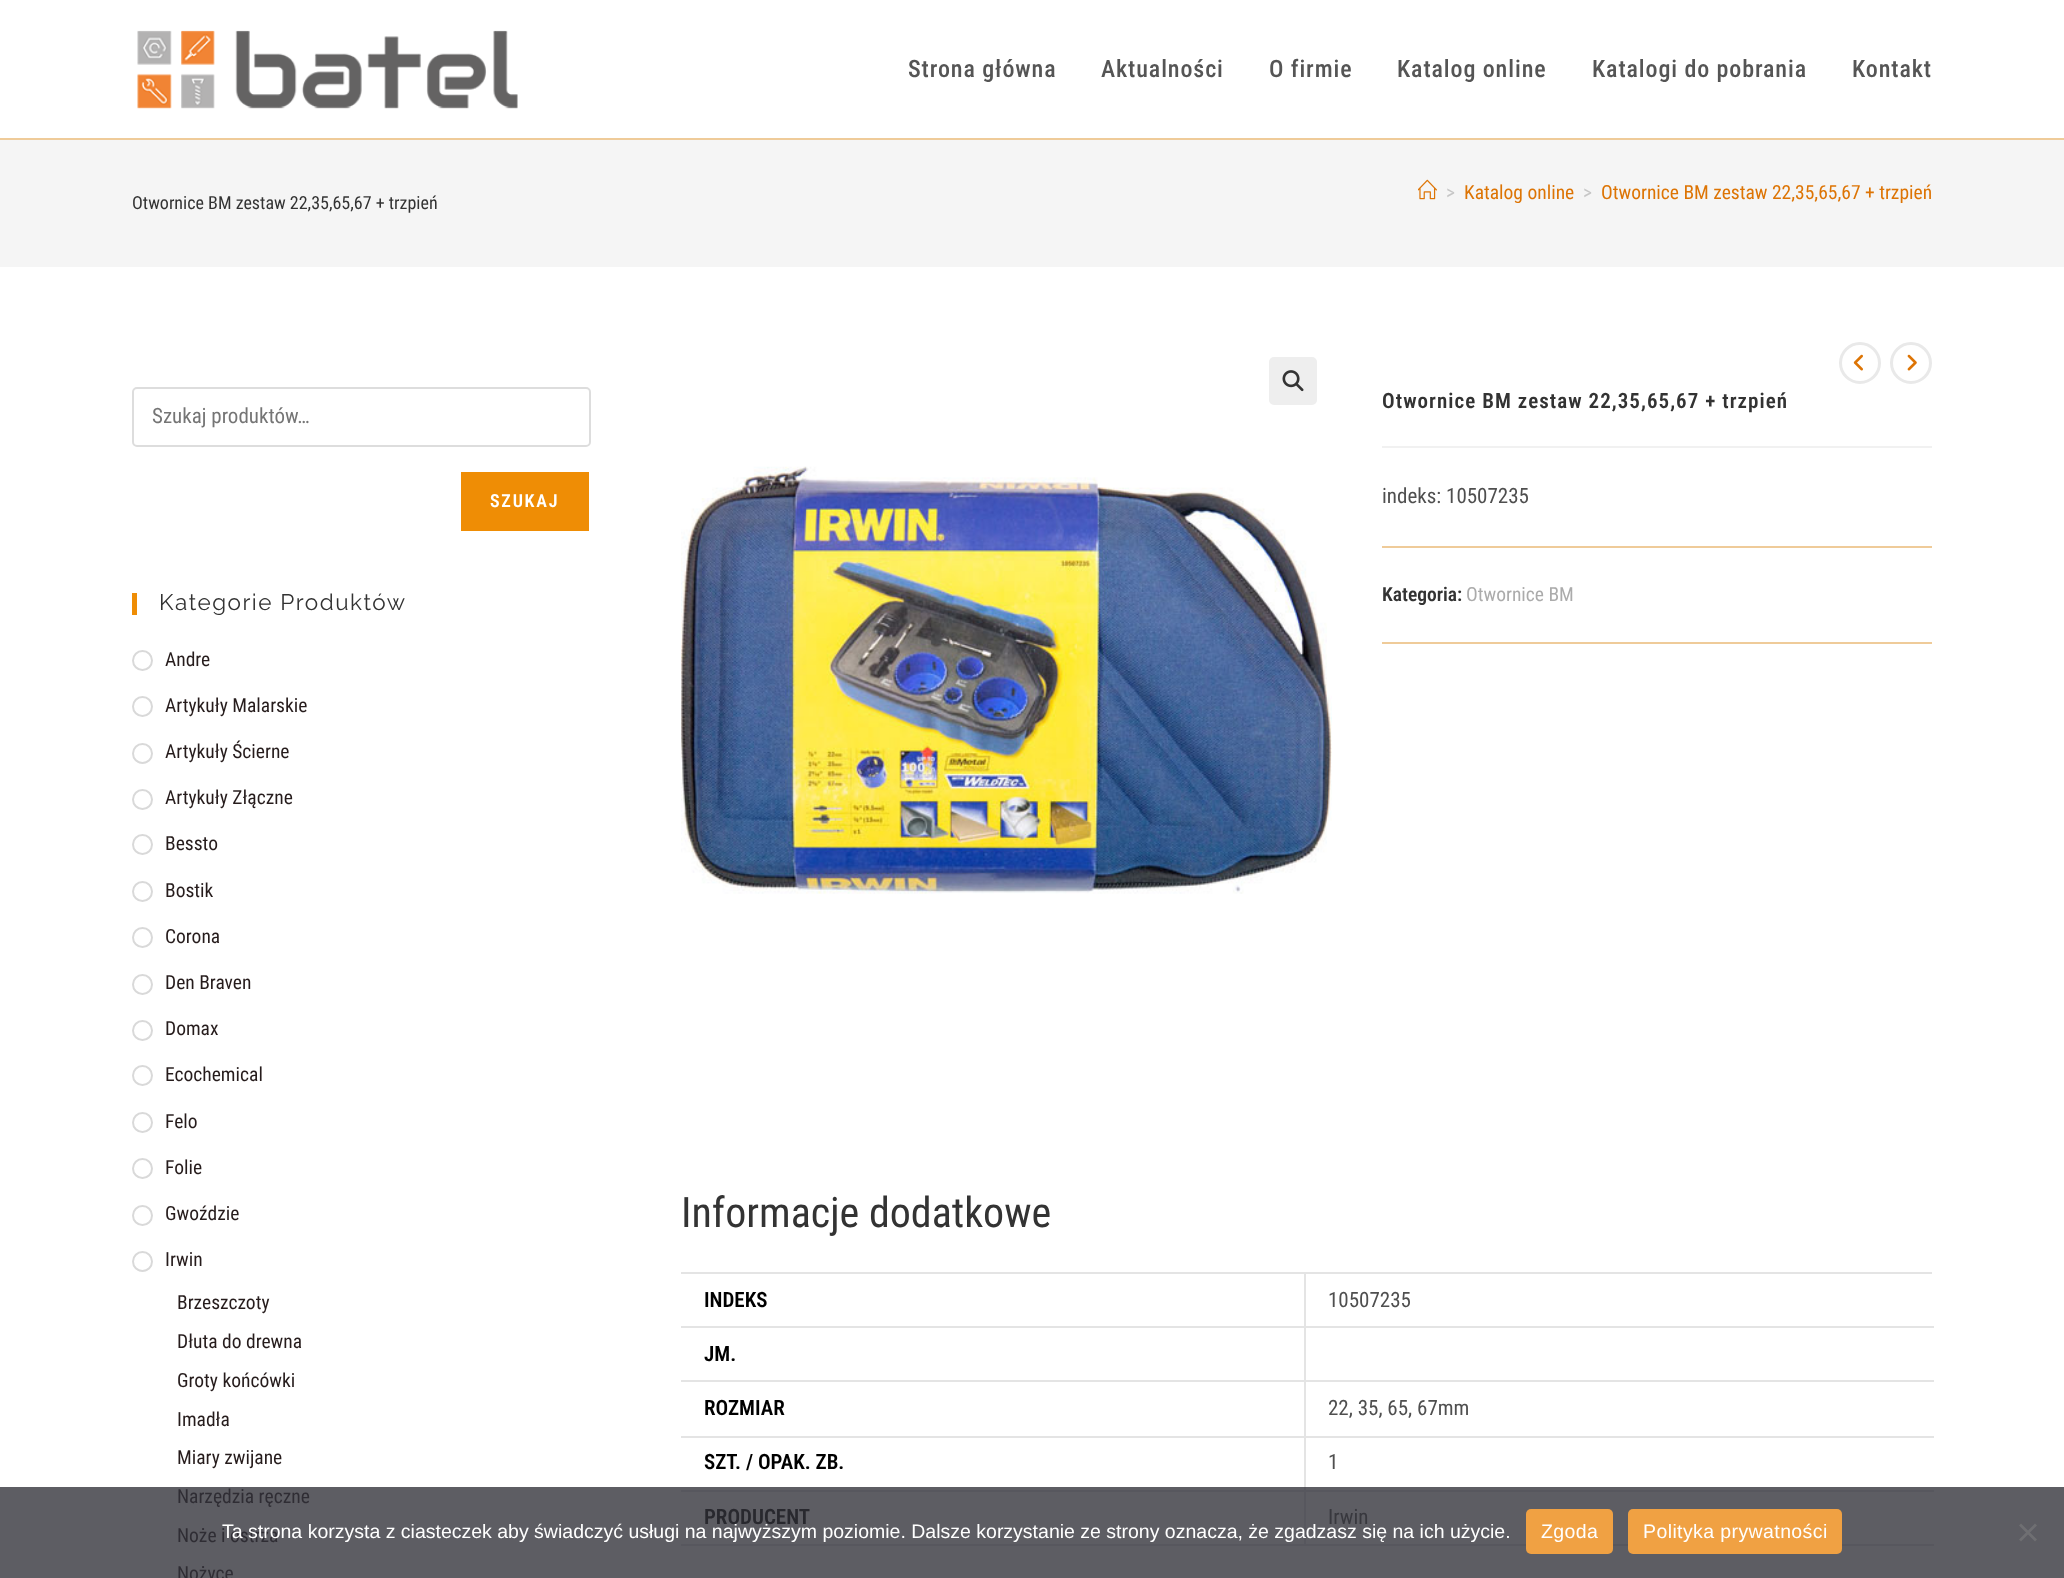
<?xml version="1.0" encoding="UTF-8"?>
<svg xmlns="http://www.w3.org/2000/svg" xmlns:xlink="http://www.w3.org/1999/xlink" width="2064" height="1578">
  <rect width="100%" height="100%" fill="#ffffff" />
  <rect y="1487" width="2064" height="91" fill="#5d5d63" />
  <rect y="138" width="2064" height="2" fill="#efcb99" />
  <image x="137" y="30" width="381" height="79" xlink:href="image1.png" />
  <rect y="140" width="2064" height="127" fill="#f5f5f5" />
  <image x="1418" y="179" width="19" height="21" xlink:href="image2.png" />
  <rect x="133" y="388" width="457" height="58" rx="4" fill="none" stroke="#dddddd" stroke-width="2" />
  <rect x="461" y="472" width="128" height="59" fill="#ef8d05" />
  <rect x="132" y="593" width="5" height="22" fill="#ef8d05" />
  <circle cx="142.5" cy="660.5" r="9.5" fill="none" stroke="#d9d9d9" stroke-width="2" />
  <circle cx="142.5" cy="706.5" r="9.5" fill="none" stroke="#d9d9d9" stroke-width="2" />
  <circle cx="142.5" cy="753.5" r="9.5" fill="none" stroke="#d9d9d9" stroke-width="2" />
  <circle cx="142.5" cy="799.5" r="9.5" fill="none" stroke="#d9d9d9" stroke-width="2" />
  <circle cx="142.5" cy="844.5" r="9.5" fill="none" stroke="#d9d9d9" stroke-width="2" />
  <circle cx="142.5" cy="891.5" r="9.5" fill="none" stroke="#d9d9d9" stroke-width="2" />
  <circle cx="142.5" cy="937.5" r="9.5" fill="none" stroke="#d9d9d9" stroke-width="2" />
  <circle cx="142.5" cy="984.5" r="9.5" fill="none" stroke="#d9d9d9" stroke-width="2" />
  <circle cx="142.5" cy="1030.5" r="9.5" fill="none" stroke="#d9d9d9" stroke-width="2" />
  <circle cx="142.5" cy="1075.5" r="9.5" fill="none" stroke="#d9d9d9" stroke-width="2" />
  <circle cx="142.5" cy="1122.5" r="9.5" fill="none" stroke="#d9d9d9" stroke-width="2" />
  <circle cx="142.5" cy="1168.5" r="9.5" fill="none" stroke="#d9d9d9" stroke-width="2" />
  <circle cx="142.5" cy="1215.5" r="9.5" fill="none" stroke="#d9d9d9" stroke-width="2" />
  <circle cx="142.5" cy="1261.5" r="9.5" fill="none" stroke="#d9d9d9" stroke-width="2" />
  <rect x="1269" y="357" width="48" height="48" rx="5" fill="#eeeeee" />
  <image x="1282" y="370" width="22" height="22" xlink:href="image3.png" />
  <image x="681" y="466" width="651" height="428" xlink:href="image4.png" />
  <rect x="1382" y="446" width="550" height="2" fill="#f1f1f1" />
  <rect x="1382" y="546" width="550" height="2" fill="#efcb99" />
  <rect x="1382" y="642" width="550" height="2" fill="#efcb99" />
  <circle cx="1860" cy="363" r="19.5" fill="none" stroke="#e9e9e9" stroke-width="3" />
  <image x="1853" y="354" width="10" height="17" xlink:href="image5.png" />
  <circle cx="1911" cy="363" r="19.5" fill="none" stroke="#e9e9e9" stroke-width="3" />
  <image x="1907" y="354" width="10" height="17" xlink:href="image6.png" />
  <rect x="681" y="1272" width="1251" height="2" fill="#e4e4e4" />
  <rect x="1304" y="1544" width="630" height="2" fill="#57575e" />
  <rect x="1304" y="1490" width="2" height="55" fill="#57575e" />
  <rect x="1304" y="1490" width="630" height="2" fill="#57575e" />
  <rect x="1304" y="1436" width="2" height="55" fill="#e4e4e4" />
  <rect x="1304" y="1436" width="630" height="2" fill="#e4e4e4" />
  <rect x="1304" y="1380" width="2" height="57" fill="#e4e4e4" />
  <rect x="1304" y="1380" width="630" height="2" fill="#e4e4e4" />
  <rect x="1304" y="1326" width="2" height="56" fill="#e4e4e4" />
  <rect x="1304" y="1326" width="630" height="2" fill="#e4e4e4" />
  <rect x="1304" y="1272" width="2" height="56" fill="#e4e4e4" />
  <rect x="681" y="1326" width="624" height="2" fill="#e4e4e4" />
  <rect x="681" y="1380" width="624" height="2" fill="#e4e4e4" />
  <rect x="681" y="1436" width="624" height="2" fill="#e4e4e4" />
  <rect x="1304" y="1487" width="2" height="4" fill="#57575e" />
  <rect x="681" y="1490" width="624" height="2" fill="#57575e" />
  <rect x="681" y="1544" width="624" height="2" fill="#57575e" />
  <rect x="1526" y="1509" width="87" height="45" rx="5" fill="#f0a143" />
  <rect x="1628" y="1509" width="214" height="45" rx="5" fill="#f0a143" />
  <path d="M 2035 1523.5 l 2 2 l -16 16 l -2 -2 z" fill="#6f6f72" />
  <path d="M 2019 1525.5 l 2 -2 l 16 16 l -2 2 z" fill="#6f6f72" />
  <text x="908" y="77" style="font-family: Roboto Condensed; font-size: 24px; font-weight: 500; letter-spacing: 0.9px; fill: #555555">Strona główna</text>
  <text x="1101" y="77" style="font-family: Roboto Condensed; font-size: 24px; font-weight: 500; letter-spacing: 0.9px; fill: #555555">Aktualności</text>
  <text x="1269" y="77" style="font-family: Roboto Condensed; font-size: 24px; font-weight: 500; letter-spacing: 0.9px; fill: #555555">O firmie</text>
  <text x="1397" y="77" style="font-family: Roboto Condensed; font-size: 24px; font-weight: 500; letter-spacing: 0.9px; fill: #555555">Katalog online</text>
  <text x="1592" y="77" style="font-family: Roboto Condensed; font-size: 24px; font-weight: 500; letter-spacing: 0.9px; fill: #555555">Katalogi do pobrania</text>
  <text x="1852" y="77" style="font-family: Roboto Condensed; font-size: 24px; font-weight: 500; letter-spacing: 0.9px; fill: #555555">Kontakt</text>
  <text x="132" y="209" style="font-family: Roboto Condensed; font-size: 18px; fill: #333333">Otwornice BM zestaw 22,35,65,67 + trzpień</text>
  <text x="1446" y="199" style="font-family: Roboto Condensed; font-size: 19.5px; fill: #c6c6c6">&gt;</text>
  <text x="1464" y="199" style="font-family: Roboto Condensed; font-size: 19.5px; fill: #dd7404">Katalog online</text>
  <text x="1583" y="199" style="font-family: Roboto Condensed; font-size: 19.5px; fill: #c6c6c6">&gt;</text>
  <text x="1601" y="199" style="font-family: Roboto Condensed; font-size: 19.5px; fill: #dd7404">Otwornice BM zestaw 22,35,65,67 + trzpień</text>
  <text x="152" y="423" style="font-family: Roboto Condensed; font-size: 21px; fill: #757575">Szukaj produktów…</text>
  <text x="490" y="507" style="font-family: Roboto Condensed; font-size: 18px; font-weight: 600; letter-spacing: 1.75px; fill: #ffffff">SZUKAJ</text>
  <text x="159" y="610" style="font-family: Raleway; font-size: 22.5px; letter-spacing: 1.5px; fill: #333333">Kategorie Produktów</text>
  <text x="165" y="666" style="font-family: Roboto Condensed; font-size: 19.5px; fill: #261c1c">Andre</text>
  <text x="165" y="712" style="font-family: Roboto Condensed; font-size: 19.5px; fill: #261c1c">Artykuły Malarskie</text>
  <text x="165" y="758" style="font-family: Roboto Condensed; font-size: 19.5px; fill: #261c1c">Artykuły Ścierne</text>
  <text x="165" y="804" style="font-family: Roboto Condensed; font-size: 19.5px; fill: #261c1c">Artykuły Złączne</text>
  <text x="165" y="850" style="font-family: Roboto Condensed; font-size: 19.5px; fill: #261c1c">Bessto</text>
  <text x="165" y="897" style="font-family: Roboto Condensed; font-size: 19.5px; fill: #261c1c">Bostik</text>
  <text x="165" y="943" style="font-family: Roboto Condensed; font-size: 19.5px; fill: #261c1c">Corona</text>
  <text x="165" y="989" style="font-family: Roboto Condensed; font-size: 19.5px; fill: #261c1c">Den Braven</text>
  <text x="165" y="1035" style="font-family: Roboto Condensed; font-size: 19.5px; fill: #261c1c">Domax</text>
  <text x="165" y="1081" style="font-family: Roboto Condensed; font-size: 19.5px; fill: #261c1c">Ecochemical</text>
  <text x="165" y="1128" style="font-family: Roboto Condensed; font-size: 19.5px; fill: #261c1c">Felo</text>
  <text x="165" y="1174" style="font-family: Roboto Condensed; font-size: 19.5px; fill: #261c1c">Folie</text>
  <text x="165" y="1220" style="font-family: Roboto Condensed; font-size: 19.5px; fill: #261c1c">Gwoździe</text>
  <text x="165" y="1266" style="font-family: Roboto Condensed; font-size: 19.5px; fill: #261c1c">Irwin</text>
  <text x="177" y="1309" style="font-family: Roboto Condensed; font-size: 19.5px; fill: #261c1c">Brzeszczoty</text>
  <text x="177" y="1348" style="font-family: Roboto Condensed; font-size: 19.5px; fill: #261c1c">Dłuta do drewna</text>
  <text x="177" y="1387" style="font-family: Roboto Condensed; font-size: 19.5px; fill: #261c1c">Groty końcówki</text>
  <text x="177" y="1426" style="font-family: Roboto Condensed; font-size: 19.5px; fill: #261c1c">Imadła</text>
  <text x="177" y="1464" style="font-family: Roboto Condensed; font-size: 19.5px; fill: #261c1c">Miary zwijane</text>
  <text x="177" y="1503" style="font-family: Roboto Condensed; font-size: 19.5px; fill: #2f2d34">Narzędzia ręczne</text>
  <text x="177" y="1542" style="font-family: Roboto Condensed; font-size: 19.5px; fill: #2f2d34">Noże i ostrza</text>
  <text x="177" y="1580" style="font-family: Roboto Condensed; font-size: 19.5px; fill: #2f2d34">Nożyce</text>
  <text x="1382" y="408" style="font-family: Roboto Condensed; font-size: 21px; font-weight: 600; letter-spacing: 1.05px; fill: #333333">Otwornice BM zestaw 22,35,65,67 + trzpień</text>
  <text x="1382" y="503" style="font-family: Roboto Condensed; font-size: 21px; fill: #4f4f4f">indeks: 10507235</text>
  <text x="1382" y="601" style="font-family: Roboto Condensed; font-size: 19.5px; font-weight: 600; fill: #333333">Kategoria:</text>
  <text x="1466" y="601" style="font-family: Roboto Condensed; font-size: 19.5px; fill: #ababab">Otwornice BM</text>
  <text x="681" y="1227" style="font-family: Roboto Condensed; font-size: 42px; fill: #333333">Informacje dodatkowe</text>
  <text x="704" y="1307" style="font-family: Roboto Condensed; font-size: 21px; font-weight: 600; fill: #000000">INDEKS</text>
  <text x="1328" y="1307" style="font-family: Roboto Condensed; font-size: 21px; fill: #4f4f4f">10507235</text>
  <text x="704" y="1361" style="font-family: Roboto Condensed; font-size: 21px; font-weight: 600; fill: #000000">JM.</text>
  <text x="704" y="1415" style="font-family: Roboto Condensed; font-size: 21px; font-weight: 600; fill: #000000">ROZMIAR</text>
  <text x="1328" y="1415" style="font-family: Roboto Condensed; font-size: 21px; fill: #4f4f4f">22, 35, 65, 67mm</text>
  <text x="704" y="1469" style="font-family: Roboto Condensed; font-size: 21px; font-weight: 600; fill: #000000">SZT. / OPAK. ZB.</text>
  <text x="1328" y="1469" style="font-family: Roboto Condensed; font-size: 21px; fill: #4f4f4f">1</text>
  <text x="704" y="1524" style="font-family: Roboto Condensed; font-size: 21px; font-weight: 600; fill: #28282e">PRODUCENT</text>
  <text x="1328" y="1524" style="font-family: Roboto Condensed; font-size: 21px; fill: #38383e">Irwin</text>
  <text x="222" y="1538" style="font-family: Liberation Sans; font-size: 19.5px; fill: #ffffff">Ta strona korzysta z ciasteczek aby świadczyć usługi na najwyższym poziomie. Dalsze korzystanie ze strony oznacza, że zgadzasz się na ich użycie.</text>
  <text x="1541" y="1538" style="font-family: Liberation Sans; font-size: 19.5px; letter-spacing: 0.4px; fill: #ffffff">Zgoda</text>
  <text x="1643" y="1538" style="font-family: Liberation Sans; font-size: 19.5px; letter-spacing: 0.4px; fill: #ffffff">Polityka prywatności</text>
</svg>
